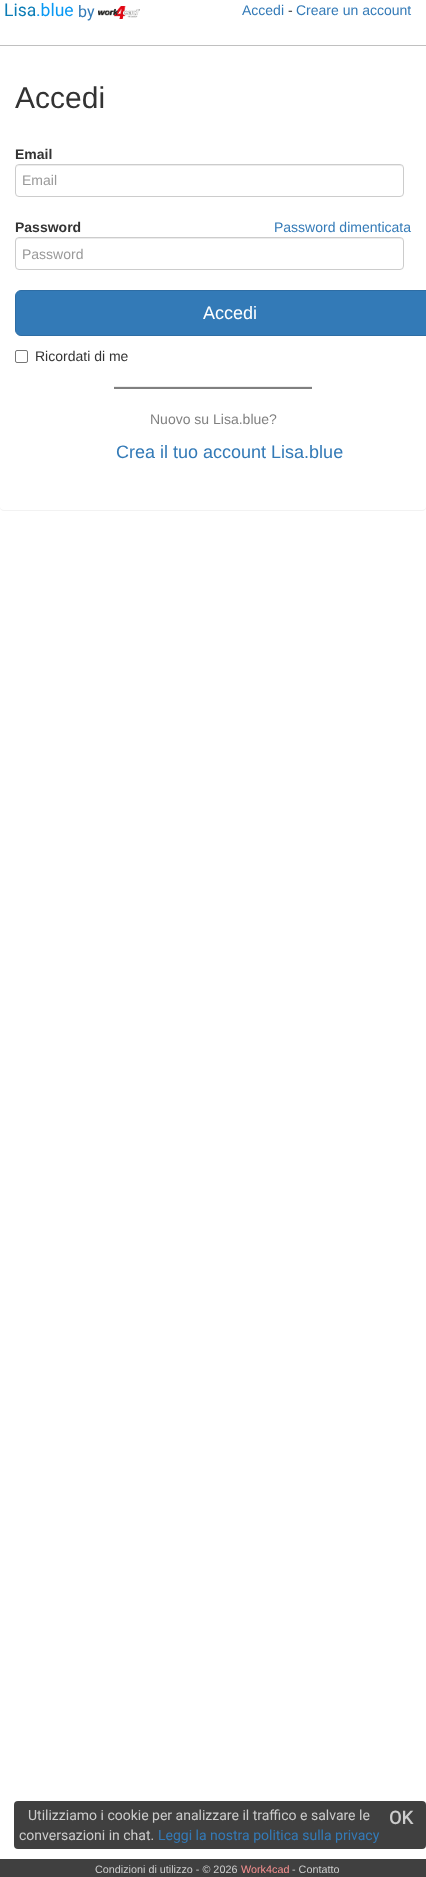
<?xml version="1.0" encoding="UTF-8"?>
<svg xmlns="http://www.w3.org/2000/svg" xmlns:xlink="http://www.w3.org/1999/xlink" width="426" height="1877">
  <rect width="100%" height="100%" fill="#ffffff" />
  <rect y="45" width="426" height="1" fill="#c0c0c0" />
  <image x="98" y="6" width="42" height="13" xlink:href="image1.png" />
  <rect y="47" width="426" height="464" rx="4" fill="#000000" fill-opacity="0.05" filter="blur(0.5px)" />
  <rect y="46" width="426" height="464" rx="4" fill="#ffffff" />
  <path d="M 19 166 h 381 c 2 0 3 1 3 3 c 0 -2 -1 -4 -3 -4 h -381 l -2 1 l -1 3 c 0 -2 1 -3 3 -3 z" fill="#ececec" />
  <rect x="15.5" y="164.5" width="388" height="32" rx="3.5" fill="none" stroke="#cccccc" />
  <path d="M 19 239 h 381 c 2 0 3 1 3 3 c 0 -2 -1 -4 -3 -4 h -381 l -2 1 l -1 3 c 0 -2 1 -3 3 -3 z" fill="#ececec" />
  <rect x="15.5" y="237.5" width="388" height="32" rx="3.5" fill="none" stroke="#cccccc" />
  <rect x="15.5" y="290.5" width="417" height="45" rx="5.5" fill="#337ab7" stroke="#2e6da4" />
  <rect x="15.5" y="350.5" width="12" height="12" rx="1.5" fill="none" stroke="#767676" />
  <rect x="114" y="387" width="198" height="2" fill="#808080" />
  <rect x="114" y="386" width="198" height="1" fill="#eeeeee" />
  <rect x="14" y="1801" width="412" height="48" rx="4" fill="#404040" />
  <rect y="1859" width="426" height="18" fill="#404040" />
  <text x="4" y="16" style="font-family: Roboto; font-size: 17.5px; fill: #0b7cb5">Lisa</text>
  <text x="36" y="16" style="font-family: Roboto; font-size: 17.5px; fill: #0999f4">.blue</text>
  <text x="78" y="17" style="font-family: Roboto; font-size: 16px; fill: #337ab7">by</text>
  <text x="242" y="15" style="font-family: Liberation Sans; font-size: 14px; fill: #337ab7">Accedi</text>
  <text x="288" y="15" style="font-family: Liberation Sans; font-size: 14px; fill: #333333">-</text>
  <text x="296" y="15" style="font-family: Liberation Sans; font-size: 14px; fill: #337ab7">Creare un account</text>
  <text x="15" y="108" style="font-family: Liberation Sans; font-size: 30px; fill: #333333">Accedi</text>
  <text x="15" y="159" style="font-family: Liberation Sans; font-size: 14px; font-weight: bold; fill: #333333">Email</text>
  <text x="22" y="185" style="font-family: Liberation Sans; font-size: 14px; fill: #999999">Email</text>
  <text x="15" y="232" style="font-family: Liberation Sans; font-size: 14px; font-weight: bold; fill: #333333">Password</text>
  <text x="274" y="232" style="font-family: Liberation Sans; font-size: 14px; fill: #337ab7">Password dimenticata</text>
  <text x="22" y="259" style="font-family: Liberation Sans; font-size: 14px; fill: #999999">Password</text>
  <text x="203" y="319" style="font-family: Liberation Sans; font-size: 18px; fill: #ffffff">Accedi</text>
  <text x="35" y="361" style="font-family: Liberation Sans; font-size: 14px; fill: #333333">Ricordati di me</text>
  <text x="150" y="424" style="font-family: Liberation Sans; font-size: 14px; fill: #808080">Nuovo su Lisa.blue?</text>
  <text x="116" y="458" style="font-family: Liberation Sans; font-size: 18px; fill: #337ab7">Crea il tuo account Lisa.blue</text>
  <text x="28" y="1820" style="font-family: Roboto; font-size: 14px; fill: #cccccc">Utilizziamo i cookie per analizzare il traffico e salvare le</text>
  <text x="389" y="1824" style="font-family: Roboto; font-size: 18px; font-weight: bold; fill: #cccccc">OK</text>
  <text x="19" y="1840" style="font-family: Roboto; font-size: 14px; fill: #cccccc">conversazioni in chat.</text>
  <text x="158" y="1840" style="font-family: Roboto; font-size: 14px; fill: #337ab7">Leggi la nostra politica sulla privacy</text>
  <text x="95" y="1873" style="font-family: Liberation Sans; font-size: 10.8px; fill: #cccccc">Condizioni di utilizzo - © 2026</text>
  <text x="241" y="1873" style="font-family: Liberation Sans; font-size: 10.8px; fill: #f58f8f">Work4cad</text>
  <text x="292" y="1873" style="font-family: Liberation Sans; font-size: 10.8px; fill: #cccccc">- Contatto</text>
</svg>
